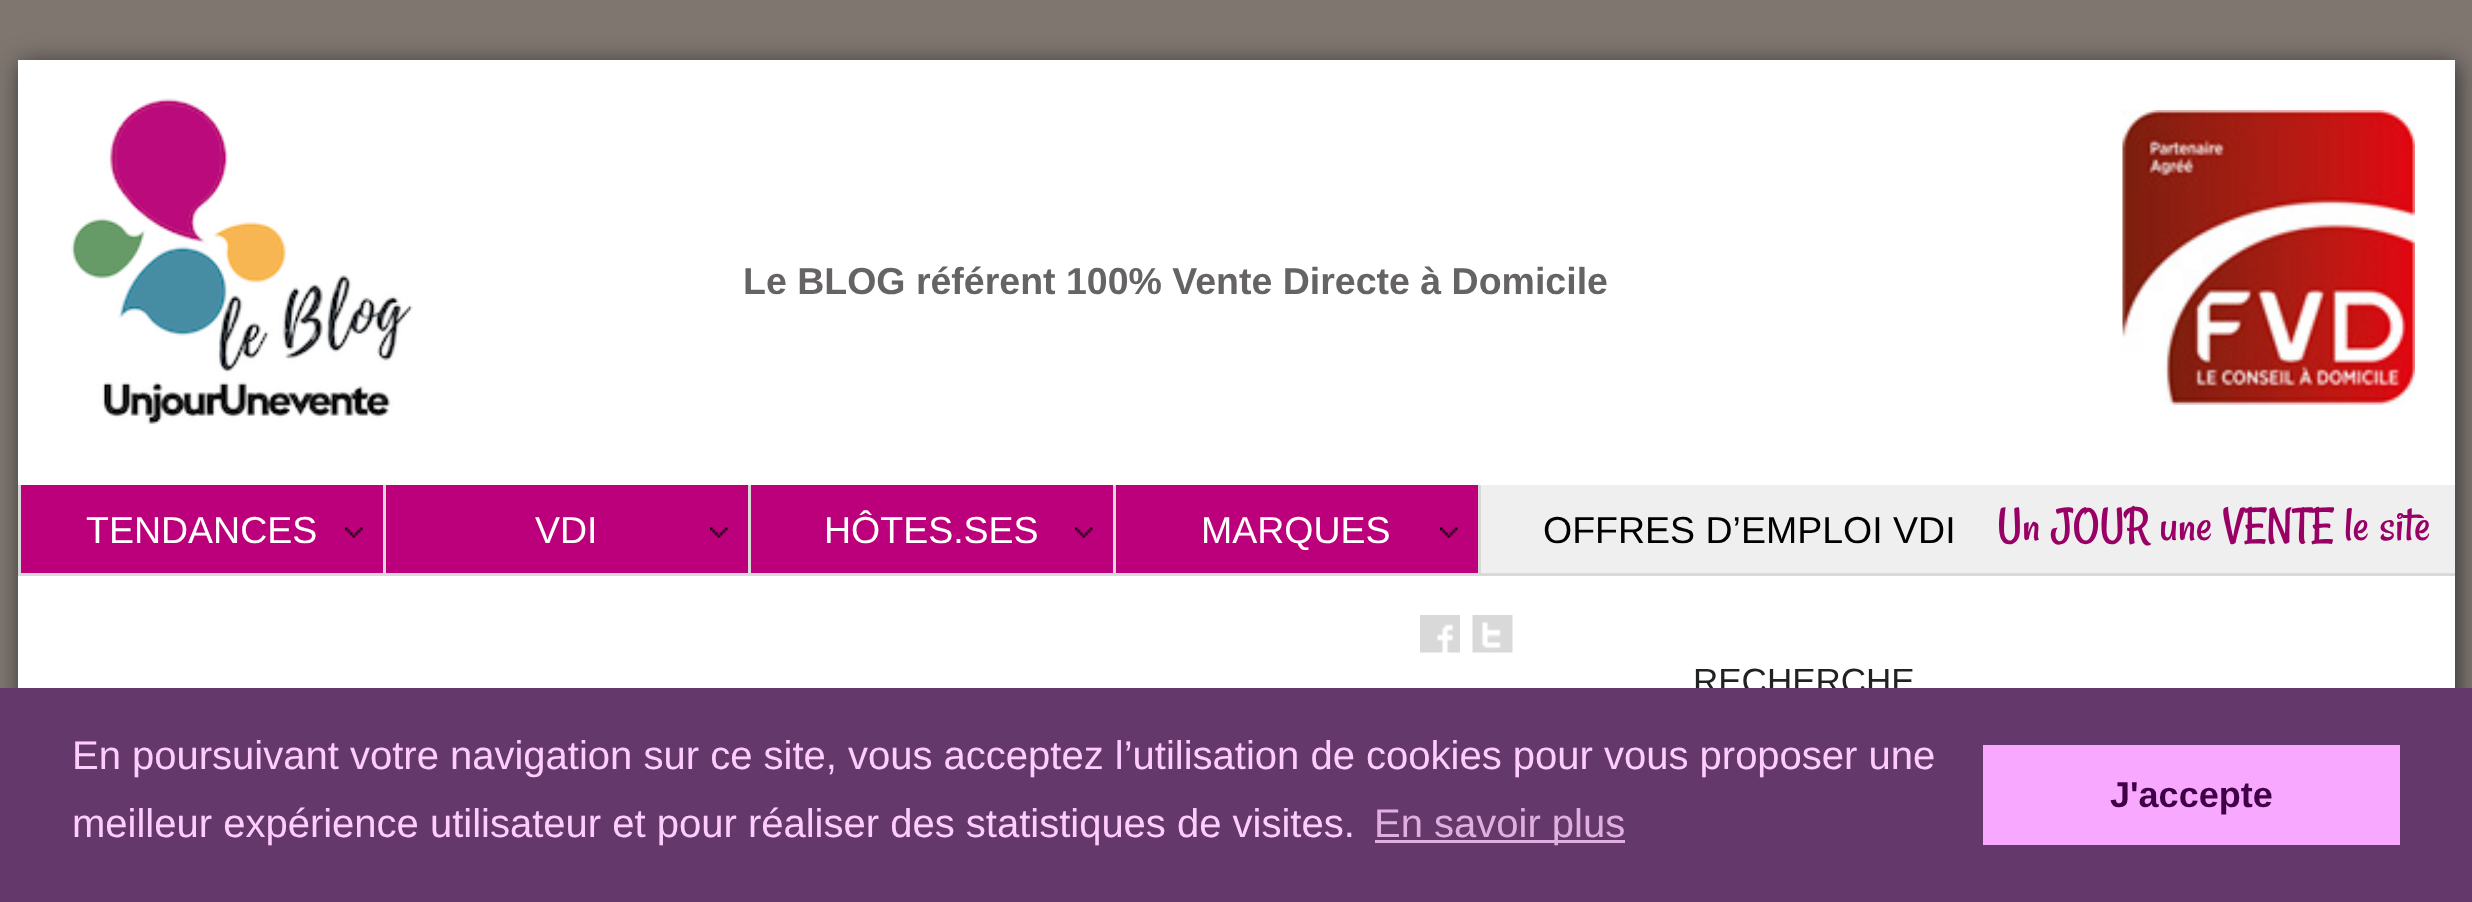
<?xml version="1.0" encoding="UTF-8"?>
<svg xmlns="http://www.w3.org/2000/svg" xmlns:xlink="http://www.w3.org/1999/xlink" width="2472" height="902">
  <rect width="100%" height="100%" fill="#7f7670" />
  <rect x="20" y="63" width="2438" height="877" fill="#333333" filter="blur(12.5px)" />
  <rect x="18" y="60" width="2437" height="628" fill="#ffffff" />
  <image x="71" y="98" width="342" height="327" xlink:href="image1.png" />
  <image x="2122" y="110" width="293" height="295" xlink:href="image2.png" />
  <rect x="1481" y="485" width="974" height="88" fill="#efefef" />
  <rect x="18" y="573" width="2437" height="3" fill="#d9d9d9" />
  <rect x="21" y="485" width="362" height="88" fill="#bc007c" />
  <rect x="18" y="485" width="3" height="88" fill="#d9d9d9" />
  <image x="345" y="527" width="18" height="11" xlink:href="image3.png" />
  <rect x="386" y="485" width="362" height="88" fill="#bc007c" />
  <rect x="383" y="485" width="3" height="88" fill="#d9d9d9" />
  <image x="710" y="527" width="18" height="11" xlink:href="image4.png" />
  <rect x="751" y="485" width="362" height="88" fill="#bc007c" />
  <rect x="748" y="485" width="3" height="88" fill="#d9d9d9" />
  <image x="1075" y="527" width="18" height="11" xlink:href="image3.png" />
  <rect x="1116" y="485" width="362" height="88" fill="#bc007c" />
  <rect x="1113" y="485" width="3" height="88" fill="#d9d9d9" />
  <image x="1440" y="527" width="18" height="11" xlink:href="image3.png" />
  <rect x="1478" y="485" width="3" height="88" fill="#d9d9d9" />
  <image x="1420" y="615" width="40" height="38" xlink:href="image5.png" />
  <image x="1472" y="615" width="41" height="38" xlink:href="image6.png" />
  <text x="743" y="294" style="font-family: Liberation Sans; font-size: 37.5px; font-weight: bold; fill: #656363">Le BLOG référent 100% Vente Directe à Domicile</text>
  <text x="86" y="543" style="font-family: Liberation Sans; font-size: 37.5px; fill: #ffffff">TENDANCES</text>
  <text x="535" y="543" style="font-family: Liberation Sans; font-size: 37.5px; fill: #ffffff">VDI</text>
  <text x="824" y="543" style="font-family: Liberation Sans; font-size: 37.5px; fill: #ffffff">HÔTES.SES</text>
  <text x="1201" y="543" style="font-family: Liberation Sans; font-size: 37.5px; fill: #ffffff">MARQUES</text>
  <text x="1543" y="543" style="font-family: Liberation Sans; font-size: 37.5px; fill: #000000">OFFRES D’EMPLOI VDI</text>
  <text x="1997" y="540" style="font-family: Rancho; font-size: 50px; fill: #990066">Un JOUR une VENTE le site</text>
  <text x="1693" y="693" style="font-family: Liberation Sans; font-size: 35px; fill: #1f2122">RECHERCHE</text>
  <rect y="688" width="2472" height="214" fill="#64386b" />
  <text x="72" y="769" style="font-family: Liberation Sans; font-size: 40px; fill: #ffcdfd">En poursuivant votre navigation sur ce site, vous acceptez l’utilisation de cookies pour vous proposer une</text>
  <text x="72" y="837" style="font-family: Liberation Sans; font-size: 40px; fill: #ffcdfd">meilleur expérience utilisateur et pour réaliser des statistiques de visites.</text>
  <rect x="1375" y="840" width="250" height="3" fill="#e0afe0" />
  <text x="1374" y="837" style="font-family: Liberation Sans; font-size: 40px; fill: #e0afe0">En savoir plus</text>
  <rect x="1983" y="745" width="417" height="100" fill="#f8a8ff" />
  <text x="2110" y="807" style="font-family: Liberation Sans; font-size: 36px; font-weight: bold; fill: #3f0045">J'accepte</text>
</svg>
